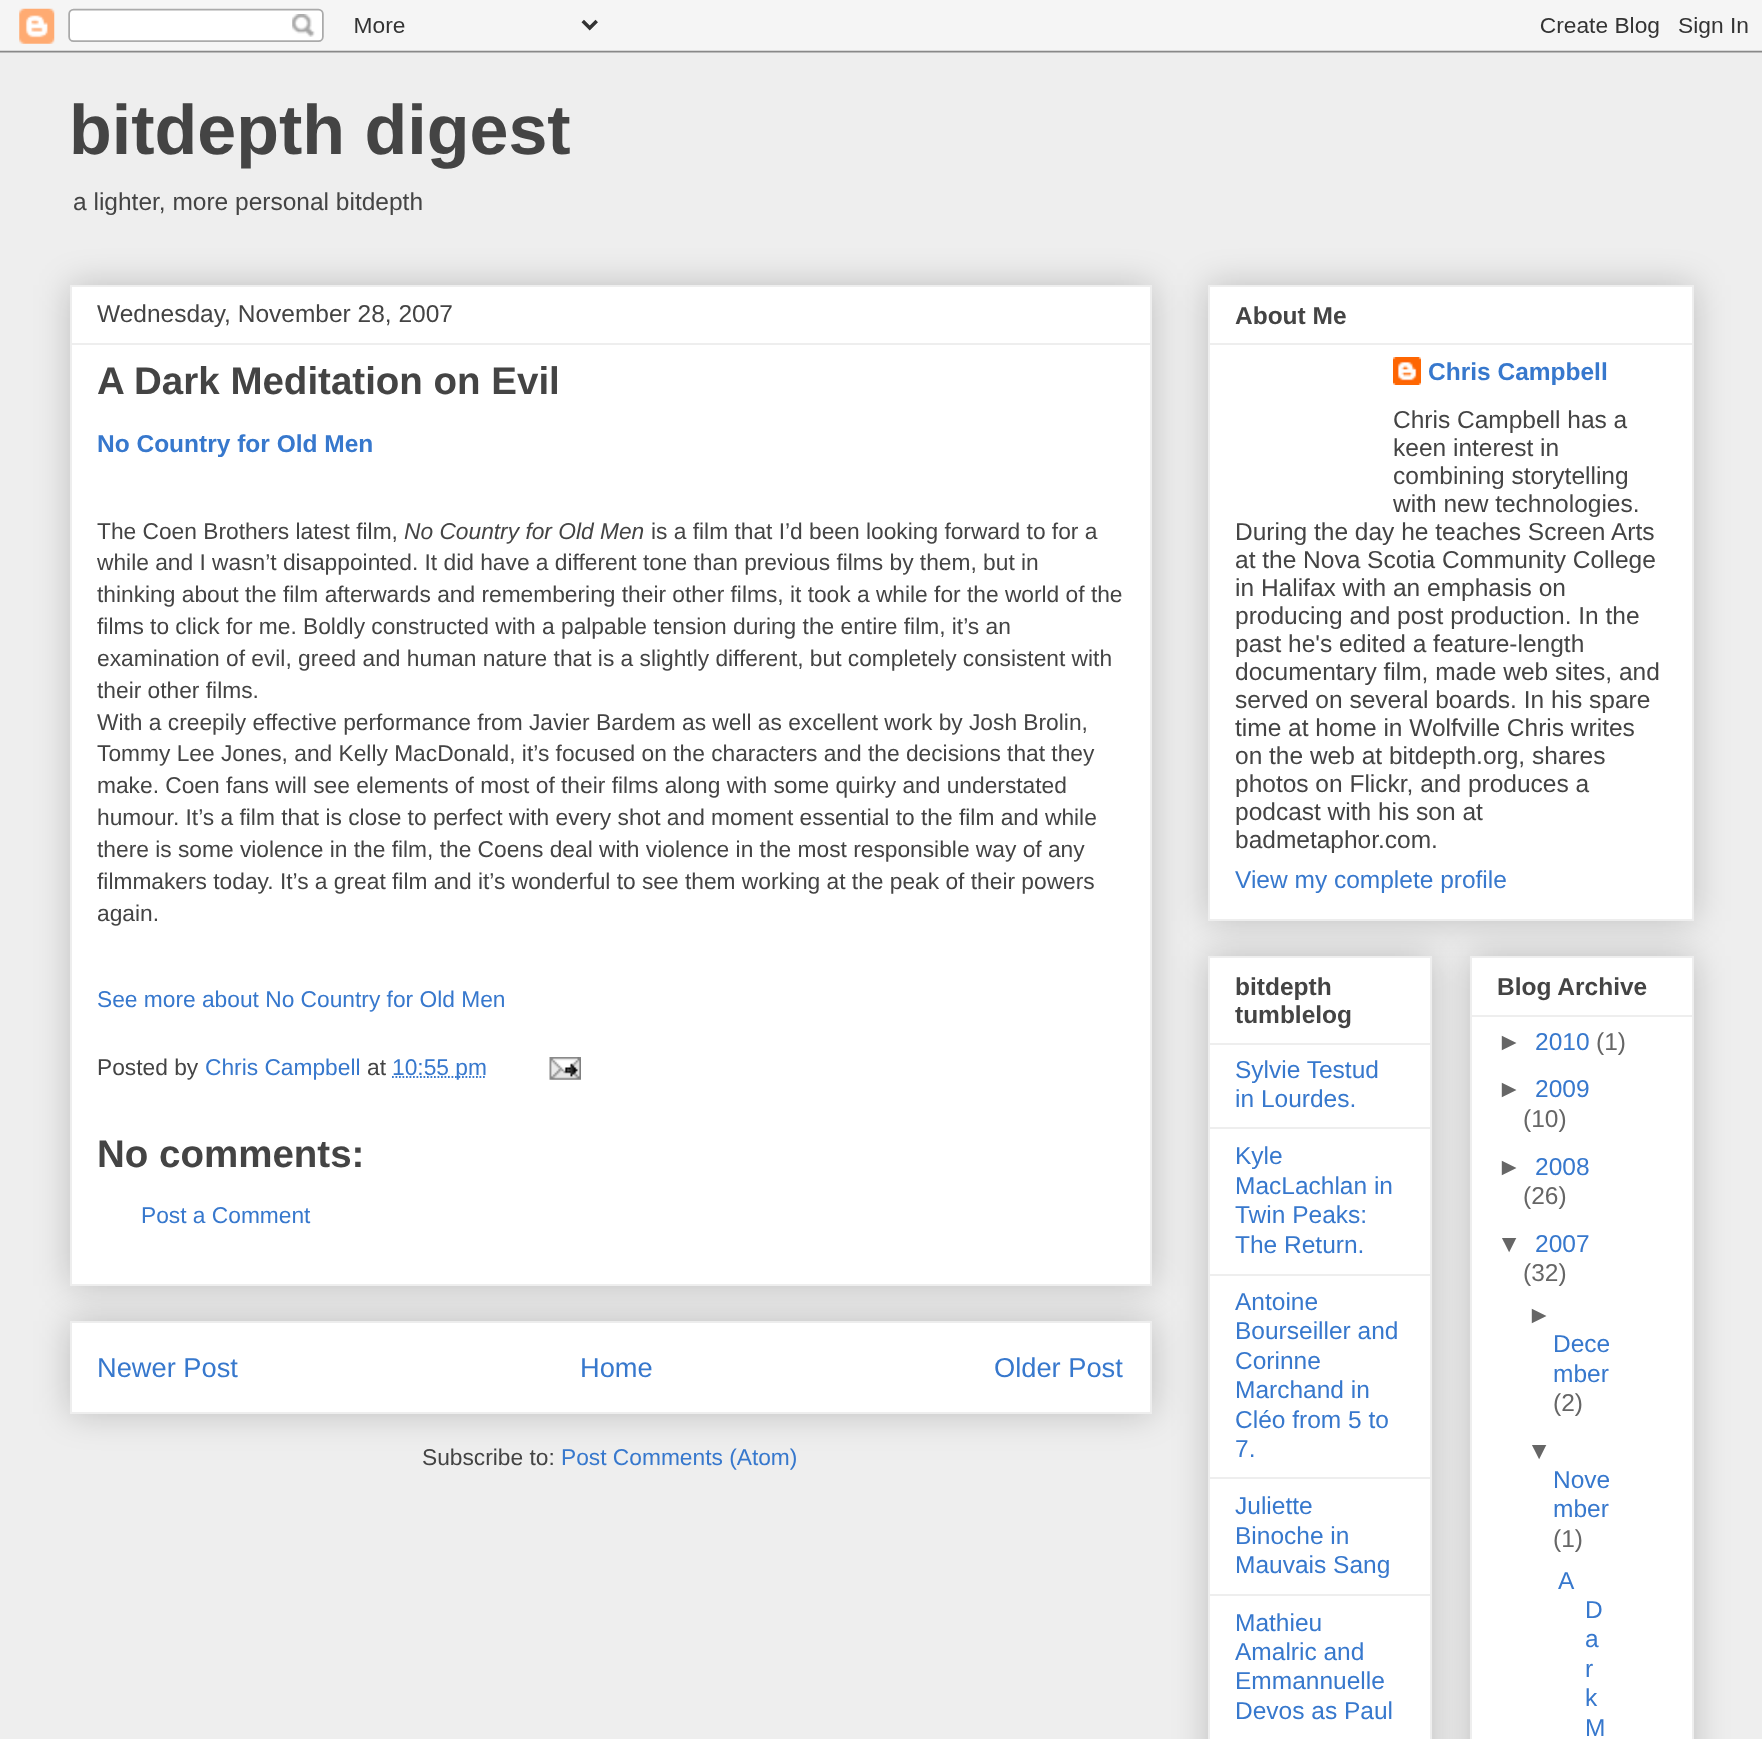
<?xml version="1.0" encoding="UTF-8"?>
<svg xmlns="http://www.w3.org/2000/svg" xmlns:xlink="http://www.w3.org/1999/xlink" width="1762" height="1739">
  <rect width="100%" height="100%" fill="#eeeeee" />
  <image x="0" y="0" width="1762" height="53" xlink:href="image1.png" />
  <rect x="70" y="1321" width="1082" height="93" fill="#000000" fill-opacity="0.2" filter="blur(17.5px)" />
  <rect x="71" y="1322" width="1080" height="91" fill="#ffffff" stroke="#eeeeee" stroke-width="2" />
  <rect x="70" y="285" width="1082" height="1001" fill="#000000" fill-opacity="0.2" filter="blur(17.5px)" />
  <rect x="71" y="286" width="1080" height="999" fill="#ffffff" stroke="#eeeeee" stroke-width="2" />
  <rect x="72" y="343" width="1078" height="2" fill="#eeeeee" />
  <path d="M 392 1077 h 94.5" fill="none" stroke="#3778cd" stroke-width="1.8" stroke-dasharray="1.75 1.75" />
  <image x="549" y="1057" width="32" height="23" xlink:href="image2.png" />
  <rect x="1208" y="285" width="486" height="636" fill="#000000" fill-opacity="0.2" filter="blur(17.5px)" />
  <rect x="1209" y="286" width="484" height="634" fill="#ffffff" stroke="#eeeeee" stroke-width="2" />
  <rect x="1209" y="343" width="483" height="2" fill="#eeeeee" />
  <image x="1393" y="357" width="28" height="28" xlink:href="image3.png" />
  <rect x="1208" y="956" width="224" height="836" fill="#000000" fill-opacity="0.2" filter="blur(17.5px)" />
  <rect x="1209" y="957" width="222" height="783" fill="#ffffff" stroke="#eeeeee" stroke-width="2" />
  <rect x="1209" y="1043" width="221" height="2" fill="#eeeeee" />
  <rect x="1209" y="1127" width="221" height="2" fill="#eeeeee" />
  <rect x="1209" y="1274" width="221" height="2" fill="#eeeeee" />
  <rect x="1209" y="1477" width="221" height="2" fill="#eeeeee" />
  <rect x="1209" y="1594" width="221" height="2" fill="#eeeeee" />
  <rect x="1470" y="956" width="224" height="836" fill="#000000" fill-opacity="0.2" filter="blur(17.5px)" />
  <rect x="1471" y="957" width="222" height="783" fill="#ffffff" stroke="#eeeeee" stroke-width="2" />
  <rect x="1472" y="1015" width="220" height="2" fill="#eeeeee" />
  <text x="69" y="154" style="font-family: Liberation Sans; font-size: 70px; font-weight: bold; fill: #444444">bitdepth digest</text>
  <text x="73" y="210" style="font-family: Liberation Sans; font-size: 24.5px; fill: #444444">a lighter, more personal bitdepth</text>
  <text x="97" y="322" style="font-family: Liberation Sans; font-size: 24.5px; fill: #444444">Wednesday, November 28, 2007</text>
  <text x="97" y="394" style="font-family: Liberation Sans; font-size: 38.5px; font-weight: bold; fill: #444444">A Dark Meditation on Evil</text>
  <text x="97" y="452" style="font-family: Liberation Sans; font-size: 24.5px; font-weight: bold; fill: #3778cd">No Country for Old Men</text>
  <text x="97" y="539" style="font-family: Liberation Sans; font-size: 22.75px; fill: #444444">The Coen Brothers latest film,</text>
  <text x="404" y="539" style="font-family: Liberation Sans; font-size: 22.75px; font-style: italic; fill: #444444">No Country for Old Men</text>
  <text x="651" y="539" style="font-family: Liberation Sans; font-size: 22.75px; fill: #444444">is a film that I’d been looking forward to for a</text>
  <text x="97" y="570" style="font-family: Liberation Sans; font-size: 22.75px; fill: #444444">while and I wasn’t disappointed. It did have a different tone than previous films by them, but in</text>
  <text x="97" y="602" style="font-family: Liberation Sans; font-size: 22.75px; fill: #444444">thinking about the film afterwards and remembering their other films, it took a while for the world of the</text>
  <text x="97" y="634" style="font-family: Liberation Sans; font-size: 22.75px; fill: #444444">films to click for me. Boldly constructed with a palpable tension during the entire film, it’s an</text>
  <text x="97" y="666" style="font-family: Liberation Sans; font-size: 22.75px; fill: #444444">examination of evil, greed and human nature that is a slightly different, but completely consistent with</text>
  <text x="97" y="698" style="font-family: Liberation Sans; font-size: 22.75px; fill: #444444">their other films.</text>
  <text x="97" y="730" style="font-family: Liberation Sans; font-size: 22.75px; fill: #444444">With a creepily effective performance from Javier Bardem as well as excellent work by Josh Brolin,</text>
  <text x="97" y="761" style="font-family: Liberation Sans; font-size: 22.75px; fill: #444444">Tommy Lee Jones, and Kelly MacDonald, it’s focused on the characters and the decisions that they</text>
  <text x="97" y="793" style="font-family: Liberation Sans; font-size: 22.75px; fill: #444444">make. Coen fans will see elements of most of their films along with some quirky and understated</text>
  <text x="97" y="825" style="font-family: Liberation Sans; font-size: 22.75px; fill: #444444">humour. It’s a film that is close to perfect with every shot and moment essential to the film and while</text>
  <text x="97" y="857" style="font-family: Liberation Sans; font-size: 22.75px; fill: #444444">there is some violence in the film, the Coens deal with violence in the most responsible way of any</text>
  <text x="97" y="889" style="font-family: Liberation Sans; font-size: 22.75px; fill: #444444">filmmakers today. It’s a great film and it’s wonderful to see them working at the peak of their powers</text>
  <text x="97" y="921" style="font-family: Liberation Sans; font-size: 22.75px; fill: #444444">again.</text>
  <text x="97" y="1007" style="font-family: Liberation Sans; font-size: 22.75px; fill: #3778cd">See more about No Country for Old Men</text>
  <text x="97" y="1075" style="font-family: Liberation Sans; font-size: 22.75px; fill: #444444">Posted by</text>
  <text x="205" y="1075" style="font-family: Liberation Sans; font-size: 22.75px; fill: #3778cd">Chris Campbell</text>
  <text x="367" y="1075" style="font-family: Liberation Sans; font-size: 22.75px; fill: #444444">at</text>
  <text x="392" y="1075" style="font-family: Liberation Sans; font-size: 22.75px; fill: #3778cd">10:55 pm</text>
  <text x="97" y="1167" style="font-family: Liberation Sans; font-size: 38.5px; font-weight: bold; fill: #444444">No comments:</text>
  <text x="141" y="1223" style="font-family: Liberation Sans; font-size: 22.75px; fill: #3778cd">Post a Comment</text>
  <text x="97" y="1377" style="font-family: Liberation Sans; font-size: 27.25px; fill: #3778cd">Newer Post</text>
  <text x="580" y="1377" style="font-family: Liberation Sans; font-size: 27.25px; fill: #3778cd">Home</text>
  <text x="994" y="1377" style="font-family: Liberation Sans; font-size: 27.25px; fill: #3778cd">Older Post</text>
  <text x="422" y="1465" style="font-family: Liberation Sans; font-size: 22.75px; fill: #444444">Subscribe to:</text>
  <text x="561" y="1465" style="font-family: Liberation Sans; font-size: 22.75px; fill: #3778cd">Post Comments (Atom)</text>
  <text x="1235" y="324" style="font-family: Liberation Sans; font-size: 24.5px; font-weight: bold; fill: #444444">About Me</text>
  <text x="1428" y="380" style="font-family: Liberation Sans; font-size: 24.5px; font-weight: bold; fill: #3778cd">Chris Campbell</text>
  <text x="1393" y="428" style="font-family: Liberation Sans; font-size: 24.5px; fill: #444444">Chris Campbell has a</text>
  <text x="1393" y="456" style="font-family: Liberation Sans; font-size: 24.5px; fill: #444444">keen interest in</text>
  <text x="1393" y="484" style="font-family: Liberation Sans; font-size: 24.5px; fill: #444444">combining storytelling</text>
  <text x="1393" y="512" style="font-family: Liberation Sans; font-size: 24.5px; fill: #444444">with new technologies.</text>
  <text x="1235" y="540" style="font-family: Liberation Sans; font-size: 24.5px; fill: #444444">During the day he teaches Screen Arts</text>
  <text x="1235" y="568" style="font-family: Liberation Sans; font-size: 24.5px; fill: #444444">at the Nova Scotia Community College</text>
  <text x="1235" y="596" style="font-family: Liberation Sans; font-size: 24.5px; fill: #444444">in Halifax with an emphasis on</text>
  <text x="1235" y="624" style="font-family: Liberation Sans; font-size: 24.5px; fill: #444444">producing and post production. In the</text>
  <text x="1235" y="652" style="font-family: Liberation Sans; font-size: 24.5px; fill: #444444">past he's edited a feature-length</text>
  <text x="1235" y="680" style="font-family: Liberation Sans; font-size: 24.5px; fill: #444444">documentary film, made web sites, and</text>
  <text x="1235" y="708" style="font-family: Liberation Sans; font-size: 24.5px; fill: #444444">served on several boards. In his spare</text>
  <text x="1235" y="736" style="font-family: Liberation Sans; font-size: 24.5px; fill: #444444">time at home in Wolfville Chris writes</text>
  <text x="1235" y="764" style="font-family: Liberation Sans; font-size: 24.5px; fill: #444444">on the web at bitdepth.org, shares</text>
  <text x="1235" y="792" style="font-family: Liberation Sans; font-size: 24.5px; fill: #444444">photos on Flickr, and produces a</text>
  <text x="1235" y="820" style="font-family: Liberation Sans; font-size: 24.5px; fill: #444444">podcast with his son at</text>
  <text x="1235" y="848" style="font-family: Liberation Sans; font-size: 24.5px; fill: #444444">badmetaphor.com.</text>
  <text x="1235" y="888" style="font-family: Liberation Sans; font-size: 24.5px; fill: #3778cd">View my complete profile</text>
  <text x="1235" y="995" style="font-family: Liberation Sans; font-size: 24.5px; font-weight: bold; fill: #444444">bitdepth</text>
  <text x="1235" y="1023" style="font-family: Liberation Sans; font-size: 24.5px; font-weight: bold; fill: #444444">tumblelog</text>
  <text x="1235" y="1078" style="font-family: Liberation Sans; font-size: 24.5px; fill: #3778cd">Sylvie Testud</text>
  <text x="1235" y="1107" style="font-family: Liberation Sans; font-size: 24.5px; fill: #3778cd">in Lourdes.</text>
  <text x="1235" y="1164" style="font-family: Liberation Sans; font-size: 24.5px; fill: #3778cd">Kyle</text>
  <text x="1235" y="1194" style="font-family: Liberation Sans; font-size: 24.5px; fill: #3778cd">MacLachlan in</text>
  <text x="1235" y="1223" style="font-family: Liberation Sans; font-size: 24.5px; fill: #3778cd">Twin Peaks:</text>
  <text x="1235" y="1253" style="font-family: Liberation Sans; font-size: 24.5px; fill: #3778cd">The Return.</text>
  <text x="1235" y="1310" style="font-family: Liberation Sans; font-size: 24.5px; fill: #3778cd">Antoine</text>
  <text x="1235" y="1339" style="font-family: Liberation Sans; font-size: 24.5px; fill: #3778cd">Bourseiller and</text>
  <text x="1235" y="1369" style="font-family: Liberation Sans; font-size: 24.5px; fill: #3778cd">Corinne</text>
  <text x="1235" y="1398" style="font-family: Liberation Sans; font-size: 24.5px; fill: #3778cd">Marchand in</text>
  <text x="1235" y="1428" style="font-family: Liberation Sans; font-size: 24.5px; fill: #3778cd">Cléo from 5 to</text>
  <text x="1235" y="1457" style="font-family: Liberation Sans; font-size: 24.5px; fill: #3778cd">7.</text>
  <text x="1235" y="1514" style="font-family: Liberation Sans; font-size: 24.5px; fill: #3778cd">Juliette</text>
  <text x="1235" y="1544" style="font-family: Liberation Sans; font-size: 24.5px; fill: #3778cd">Binoche in</text>
  <text x="1235" y="1573" style="font-family: Liberation Sans; font-size: 24.5px; fill: #3778cd">Mauvais Sang</text>
  <text x="1235" y="1631" style="font-family: Liberation Sans; font-size: 24.5px; fill: #3778cd">Mathieu</text>
  <text x="1235" y="1660" style="font-family: Liberation Sans; font-size: 24.5px; fill: #3778cd">Amalric and</text>
  <text x="1235" y="1689" style="font-family: Liberation Sans; font-size: 24.5px; fill: #3778cd">Emmannuelle</text>
  <text x="1235" y="1719" style="font-family: Liberation Sans; font-size: 24.5px; fill: #3778cd">Devos as Paul</text>
  <text x="1497" y="995" style="font-family: Liberation Sans; font-size: 24.5px; font-weight: bold; fill: #444444">Blog Archive</text>
  <text x="1497" y="1050" style="font-family: Liberation Sans; font-size: 24.5px; fill: #666666">►</text>
  <text x="1535" y="1050" style="font-family: Liberation Sans; font-size: 24.5px; fill: #3778cd">2010</text>
  <text x="1596" y="1050" style="font-family: Liberation Sans; font-size: 24.5px; fill: #666666">(1)</text>
  <text x="1497" y="1097" style="font-family: Liberation Sans; font-size: 24.5px; fill: #666666">►</text>
  <text x="1535" y="1097" style="font-family: Liberation Sans; font-size: 24.5px; fill: #3778cd">2009</text>
  <text x="1523" y="1127" style="font-family: Liberation Sans; font-size: 24.5px; fill: #666666">(10)</text>
  <text x="1497" y="1175" style="font-family: Liberation Sans; font-size: 24.5px; fill: #666666">►</text>
  <text x="1535" y="1175" style="font-family: Liberation Sans; font-size: 24.5px; fill: #3778cd">2008</text>
  <text x="1523" y="1204" style="font-family: Liberation Sans; font-size: 24.5px; fill: #666666">(26)</text>
  <text x="1497" y="1252" style="font-family: Liberation Sans; font-size: 24.5px; fill: #666666">▼</text>
  <text x="1535" y="1252" style="font-family: Liberation Sans; font-size: 24.5px; fill: #3778cd">2007</text>
  <text x="1523" y="1281" style="font-family: Liberation Sans; font-size: 24.5px; fill: #666666">(32)</text>
  <text x="1527" y="1323" style="font-family: Liberation Sans; font-size: 24.5px; fill: #666666">►</text>
  <text x="1553" y="1352" style="font-family: Liberation Sans; font-size: 24.5px; fill: #3778cd">Dece</text>
  <text x="1553" y="1382" style="font-family: Liberation Sans; font-size: 24.5px; fill: #3778cd">mber</text>
  <text x="1553" y="1411" style="font-family: Liberation Sans; font-size: 24.5px; fill: #666666">(2)</text>
  <text x="1527" y="1459" style="font-family: Liberation Sans; font-size: 24.5px; fill: #666666">▼</text>
  <text x="1553" y="1488" style="font-family: Liberation Sans; font-size: 24.5px; fill: #3778cd">Nove</text>
  <text x="1553" y="1517" style="font-family: Liberation Sans; font-size: 24.5px; fill: #3778cd">mber</text>
  <text x="1553" y="1547" style="font-family: Liberation Sans; font-size: 24.5px; fill: #666666">(1)</text>
  <text x="1558" y="1589" style="font-family: Liberation Sans; font-size: 24.5px; fill: #3778cd">A</text>
  <text x="1585" y="1618" style="font-family: Liberation Sans; font-size: 24.5px; fill: #3778cd">D</text>
  <text x="1585" y="1647" style="font-family: Liberation Sans; font-size: 24.5px; fill: #3778cd">a</text>
  <text x="1585" y="1677" style="font-family: Liberation Sans; font-size: 24.5px; fill: #3778cd">r</text>
  <text x="1585" y="1706" style="font-family: Liberation Sans; font-size: 24.5px; fill: #3778cd">k</text>
  <text x="1585" y="1736" style="font-family: Liberation Sans; font-size: 24.5px; fill: #3778cd">M</text>
</svg>
